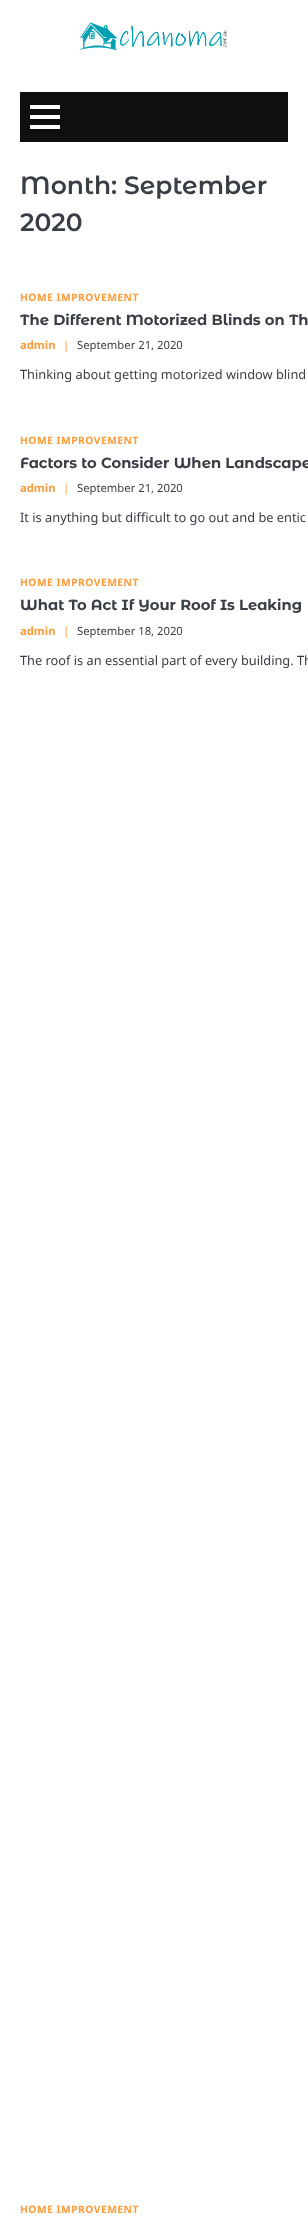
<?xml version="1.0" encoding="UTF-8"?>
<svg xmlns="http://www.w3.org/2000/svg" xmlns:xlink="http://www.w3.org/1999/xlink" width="308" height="2216">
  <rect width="100%" height="100%" fill="#ffffff" />
  <image x="80" y="22" width="147" height="28" xlink:href="image1.png" />
  <rect x="20" y="92" width="268" height="50" fill="#100f0f" />
  <rect x="30" y="105" width="30" height="4" fill="#ffffff" />
  <rect x="30" y="115" width="30" height="4" fill="#ffffff" />
  <rect x="30" y="125" width="30" height="4" fill="#ffffff" />
  <text x="20" y="194" style="font-family: Montserrat Alternates; font-size: 25px; font-weight: 600; fill: #393e46">Month: September</text>
  <text x="20" y="231" style="font-family: Montserrat Alternates; font-size: 25px; font-weight: 600; fill: #393e46">2020</text>
  <text x="20" y="301" style="font-family: Noto Sans; font-size: 10.25px; font-weight: bold; letter-spacing: 0.5px; fill: #ff9b38">HOME IMPROVEMENT</text>
  <text x="20" y="325" style="font-family: Montserrat Alternates; font-size: 14.75px; font-weight: bold; fill: #393e46">The Different Motorized Blinds on Th</text>
  <text x="20" y="349" style="font-family: Noto Sans; font-size: 11.25px; font-weight: bold; fill: #ff9b38">admin</text>
  <text x="63" y="349" style="font-family: Noto Sans; font-size: 11.25px; fill: #ff9b38">|</text>
  <text x="77" y="349" style="font-family: Noto Sans; font-size: 11.25px; fill: #393e46">September 21, 2020</text>
  <text x="20" y="379" style="font-family: Noto Sans; font-size: 12.8px; fill: #393e46">Thinking about getting motorized window blind</text>
  <text x="20" y="444" style="font-family: Noto Sans; font-size: 10.25px; font-weight: bold; letter-spacing: 0.5px; fill: #ff9b38">HOME IMPROVEMENT</text>
  <text x="20" y="468" style="font-family: Montserrat Alternates; font-size: 14.75px; font-weight: bold; fill: #393e46">Factors to Consider When Landscape</text>
  <text x="20" y="492" style="font-family: Noto Sans; font-size: 11.25px; font-weight: bold; fill: #ff9b38">admin</text>
  <text x="63" y="492" style="font-family: Noto Sans; font-size: 11.25px; fill: #ff9b38">|</text>
  <text x="77" y="492" style="font-family: Noto Sans; font-size: 11.25px; fill: #393e46">September 21, 2020</text>
  <text x="20" y="522" style="font-family: Noto Sans; font-size: 12.8px; fill: #393e46">It is anything but difficult to go out and be entic</text>
  <text x="20" y="586" style="font-family: Noto Sans; font-size: 10.25px; font-weight: bold; letter-spacing: 0.5px; fill: #ff9b38">HOME IMPROVEMENT</text>
  <text x="20" y="610" style="font-family: Montserrat Alternates; font-size: 14.75px; font-weight: bold; fill: #393e46">What To Act If Your Roof Is Leaking</text>
  <text x="20" y="635" style="font-family: Noto Sans; font-size: 11.25px; font-weight: bold; fill: #ff9b38">admin</text>
  <text x="63" y="635" style="font-family: Noto Sans; font-size: 11.25px; fill: #ff9b38">|</text>
  <text x="77" y="635" style="font-family: Noto Sans; font-size: 11.25px; fill: #393e46">September 18, 2020</text>
  <text x="20" y="665" style="font-family: Noto Sans; font-size: 12.8px; fill: #393e46">The roof is an essential part of every building. Th</text>
  <text x="20" y="2213" style="font-family: Noto Sans; font-size: 10.25px; font-weight: bold; letter-spacing: 0.5px; fill: #ff9b38">HOME IMPROVEMENT</text>
</svg>
